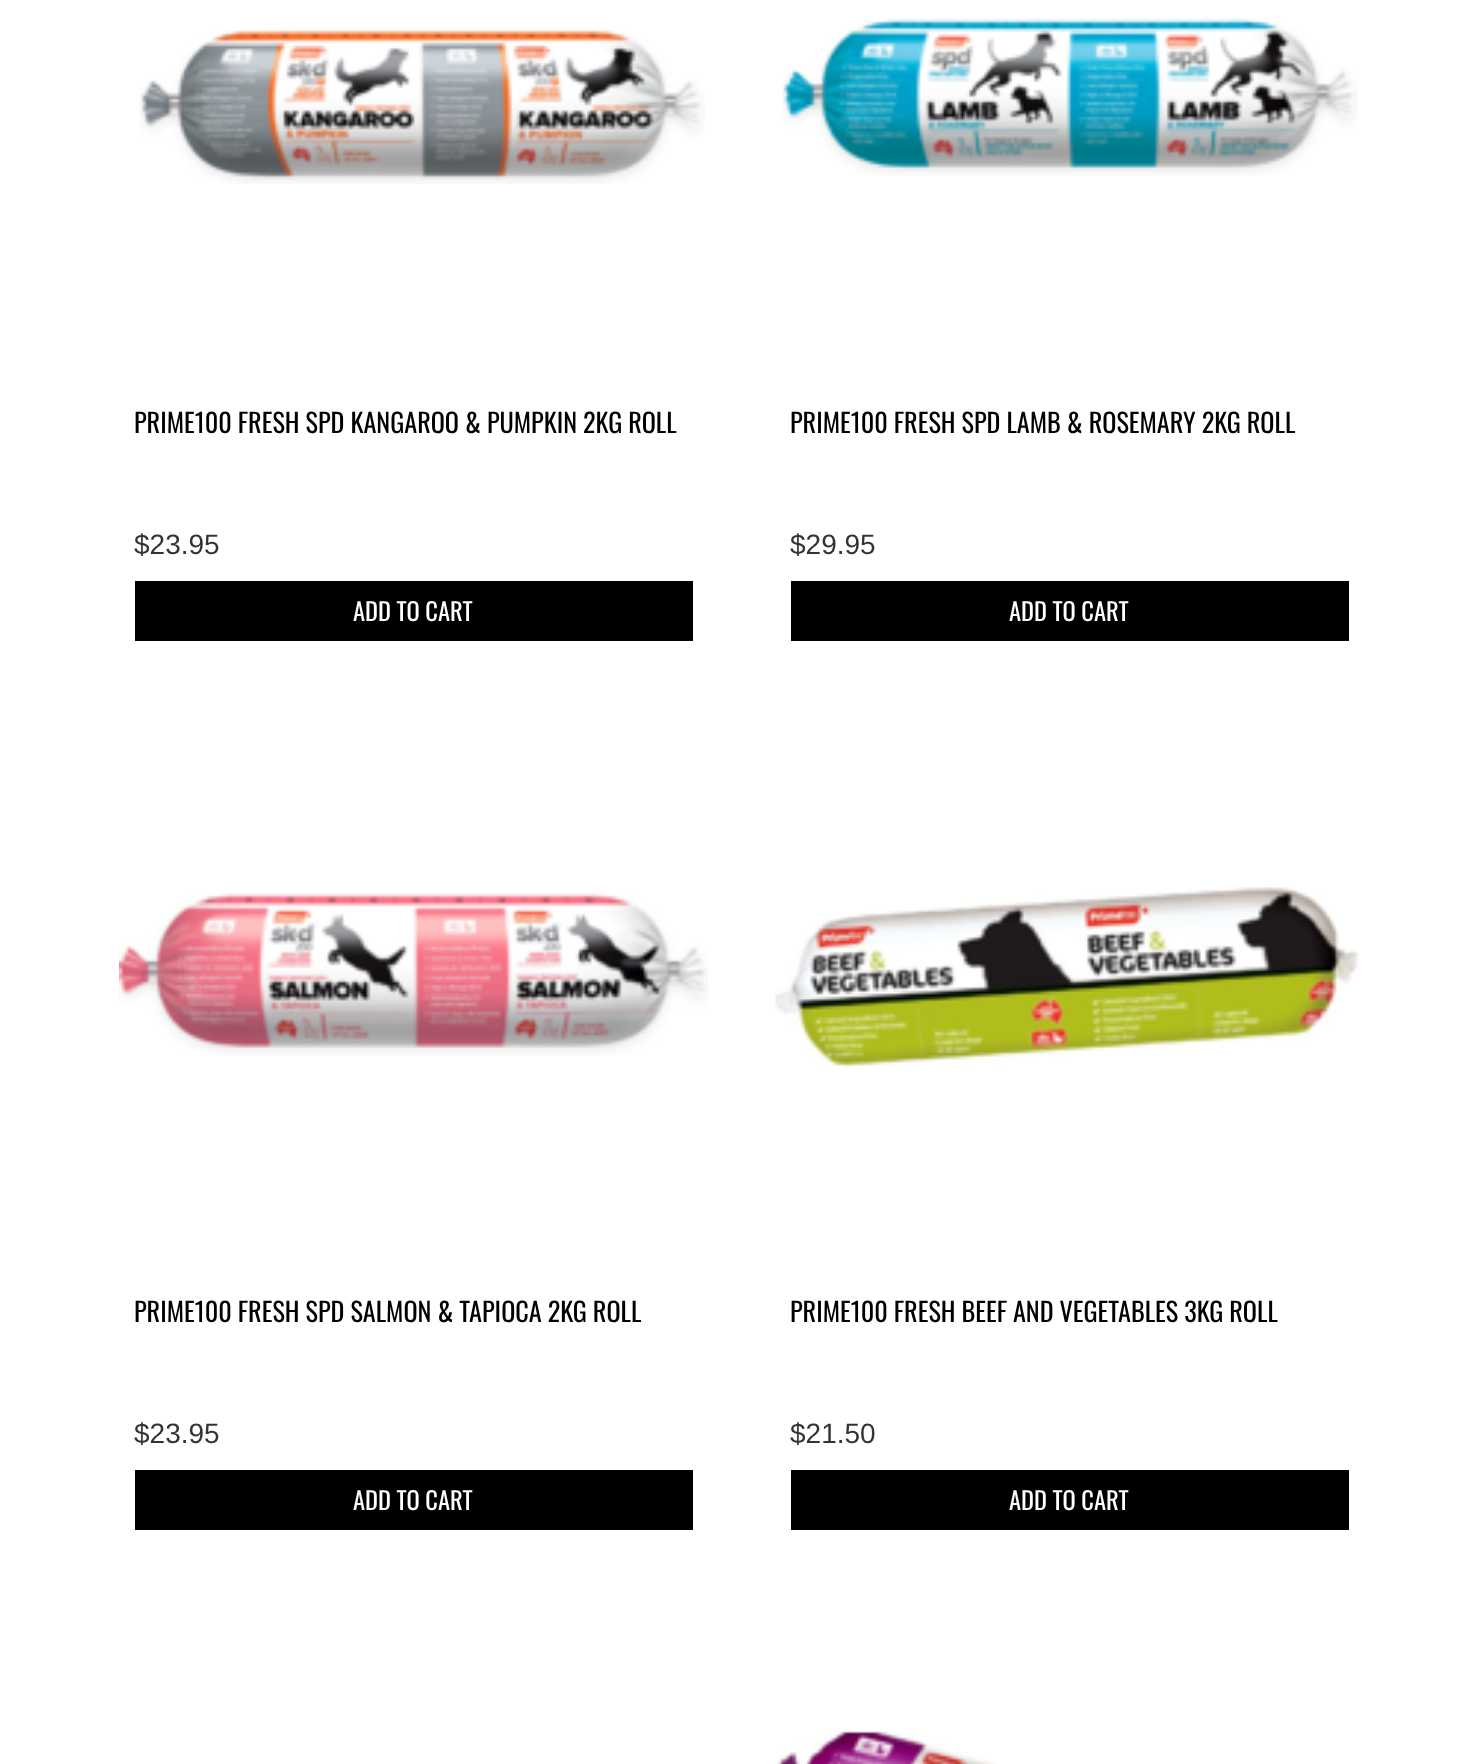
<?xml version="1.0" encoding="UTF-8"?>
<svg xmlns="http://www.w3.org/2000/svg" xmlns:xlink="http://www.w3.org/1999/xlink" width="1481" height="1764">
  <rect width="100%" height="100%" fill="#ffffff" />
  <image x="139" y="30" width="566" height="154" xlink:href="image1.png" />
  <rect x="135" y="581" width="558" height="60" fill="#000000" />
  <image x="782" y="18" width="576" height="158" xlink:href="image2.png" />
  <rect x="791" y="581" width="558" height="60" fill="#000000" />
  <image x="119" y="893" width="589" height="163" xlink:href="image3.png" />
  <rect x="135" y="1470" width="558" height="60" fill="#000000" />
  <image x="775" y="887" width="585" height="181" xlink:href="image4.png" />
  <rect x="791" y="1470" width="558" height="60" fill="#000000" />
  <image x="777" y="1731" width="220" height="33" xlink:href="image5.png" />
  <text x="134" y="433" style="font-family: Oswald; font-size: 26.25px; fill: #000000">PRIME100 FRESH SPD KANGAROO &amp; PUMPKIN 2KG ROLL</text>
  <text x="134" y="554" style="font-family: Liberation Sans; font-size: 28px; fill: #333333">$23.95</text>
  <text x="353" y="621" style="font-family: Oswald; font-size: 24.5px; fill: #ffffff">ADD TO CART</text>
  <text x="790" y="433" style="font-family: Oswald; font-size: 26.25px; fill: #000000">PRIME100 FRESH SPD LAMB &amp; ROSEMARY 2KG ROLL</text>
  <text x="790" y="554" style="font-family: Liberation Sans; font-size: 28px; fill: #333333">$29.95</text>
  <text x="1009" y="621" style="font-family: Oswald; font-size: 24.5px; fill: #ffffff">ADD TO CART</text>
  <text x="134" y="1322" style="font-family: Oswald; font-size: 26.25px; fill: #000000">PRIME100 FRESH SPD SALMON &amp; TAPIOCA 2KG ROLL</text>
  <text x="134" y="1443" style="font-family: Liberation Sans; font-size: 28px; fill: #333333">$23.95</text>
  <text x="353" y="1510" style="font-family: Oswald; font-size: 24.5px; fill: #ffffff">ADD TO CART</text>
  <text x="790" y="1322" style="font-family: Oswald; font-size: 26.25px; fill: #000000">PRIME100 FRESH BEEF AND VEGETABLES 3KG ROLL</text>
  <text x="790" y="1443" style="font-family: Liberation Sans; font-size: 28px; fill: #333333">$21.50</text>
  <text x="1009" y="1510" style="font-family: Oswald; font-size: 24.5px; fill: #ffffff">ADD TO CART</text>
</svg>
